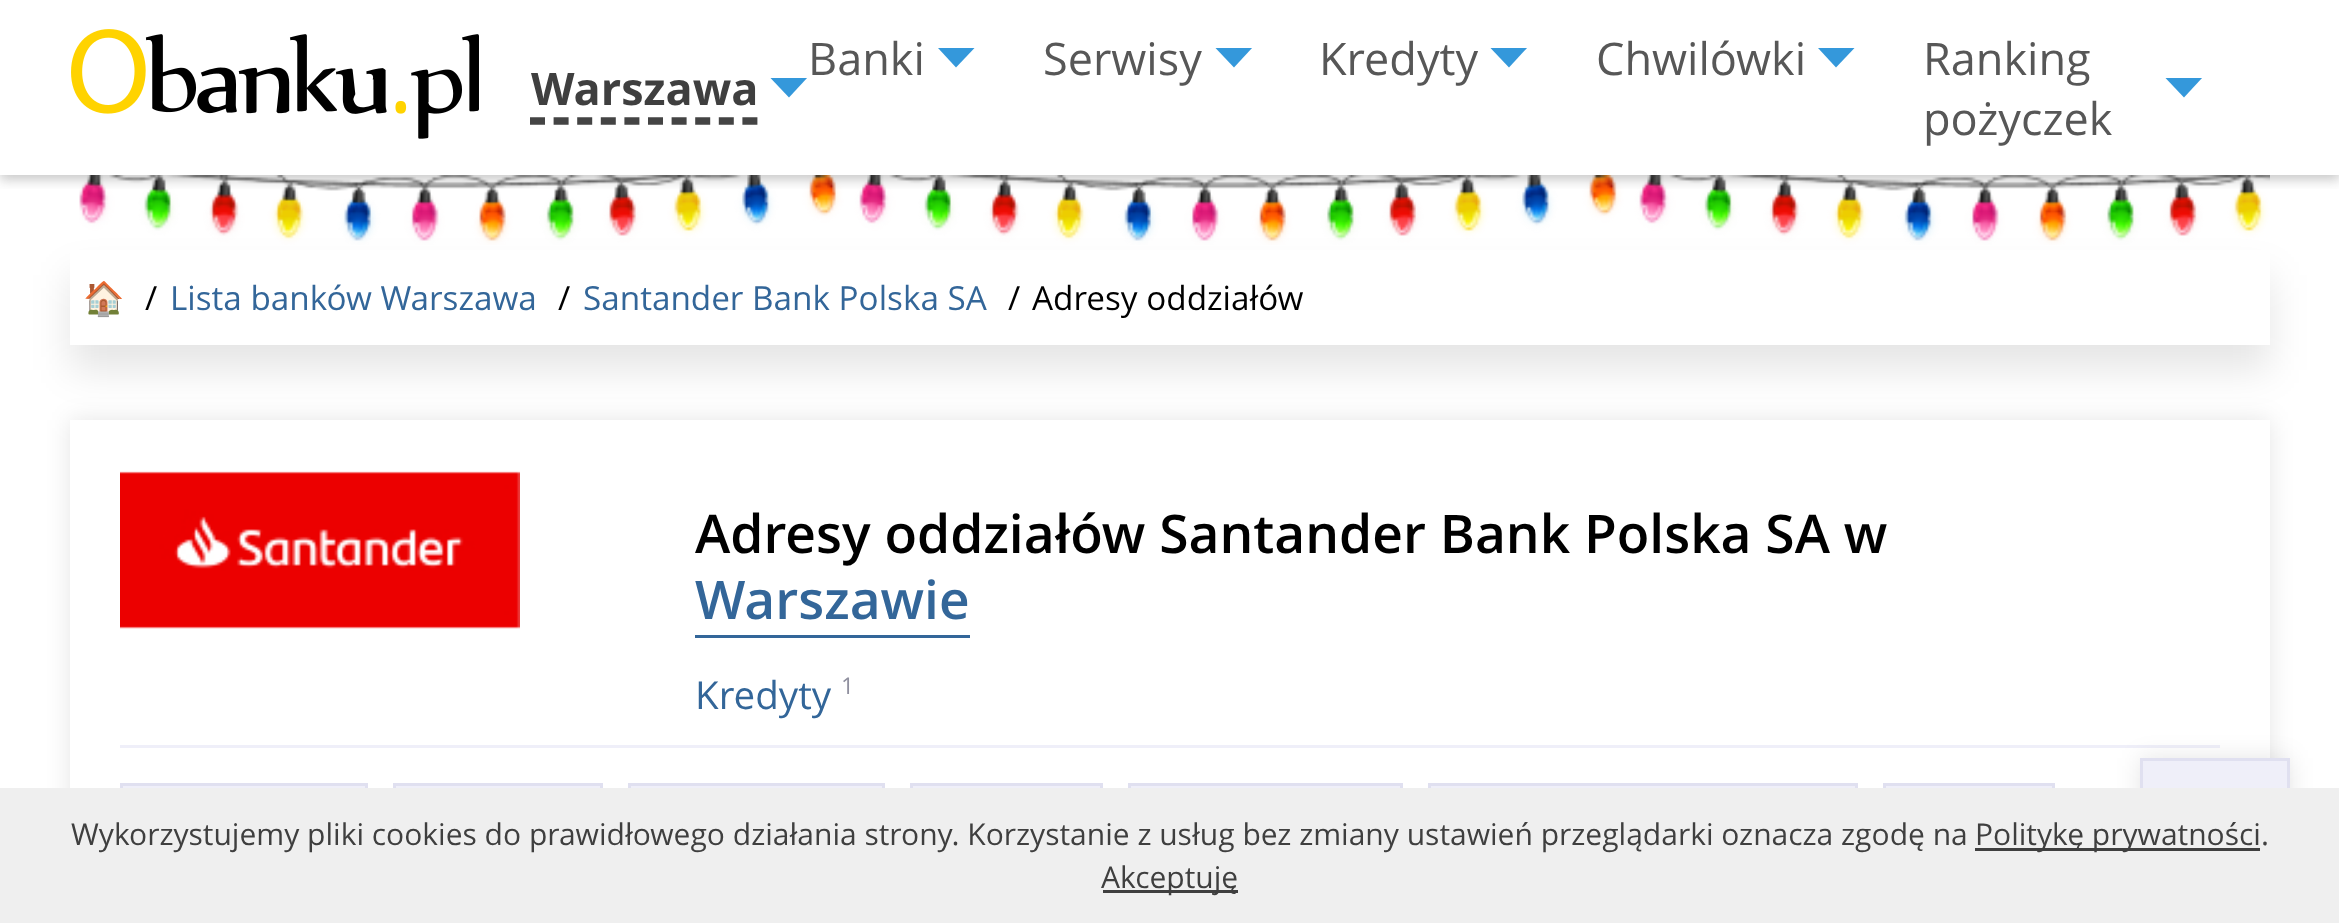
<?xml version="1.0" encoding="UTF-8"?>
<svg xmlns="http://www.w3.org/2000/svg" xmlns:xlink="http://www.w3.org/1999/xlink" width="2339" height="923">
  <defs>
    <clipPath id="clip1"><rect x="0" y="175" width="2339" height="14" /></clipPath>
    <clipPath id="clip2"><rect x="770" y="78" width="38" height="20" /></clipPath>
    <clipPath id="clip3"><rect x="938" y="48" width="37" height="20" /></clipPath>
    <clipPath id="clip4"><rect x="1215" y="48" width="38" height="20" /></clipPath>
    <clipPath id="clip5"><rect x="1490" y="48" width="38" height="20" /></clipPath>
    <clipPath id="clip6"><rect x="1818" y="48" width="37" height="20" /></clipPath>
    <clipPath id="clip7"><rect x="2165" y="78" width="38" height="20" /></clipPath>
    <clipPath id="clip8"><path d="M 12 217 h 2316 v 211 h -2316 z m 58 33 h 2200 v 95 h -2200 z" clip-rule="evenodd" /></clipPath>
    <clipPath id="clip9"><path d="M 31 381 h 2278 v 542 h -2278 z m 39 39 h 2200 v 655 h -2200 z" clip-rule="evenodd" /></clipPath>
  </defs>
  <rect width="100%" height="100%" fill="#ffffff" />
  <image x="79" y="175" width="2191" height="70" xlink:href="image2.png" />
  <g clip-path="url(#clip1)">
    <rect y="5" width="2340" height="175" fill="#555555" fill-opacity="0.31" filter="blur(6px)" />
  </g>
  <image x="71" y="29" width="408" height="110" xlink:href="image1.png" />
  <g clip-path="url(#clip2)">
    <path d="M 789 97.5 l -19 -20 h 37.5 z" fill="#3498db" />
  </g>
  <path d="M 530 121 h 227.5" fill="none" stroke="#444444" stroke-width="7.5" stroke-dasharray="15 8.6" />
  <g clip-path="url(#clip3)">
    <path d="M 956 67.5 l -18.5 -20 h 37.5 z" fill="#3498db" />
  </g>
  <g clip-path="url(#clip4)">
    <path d="M 1234 67.5 l -19 -20 h 37.5 z" fill="#3498db" />
  </g>
  <g clip-path="url(#clip5)">
    <path d="M 1509 67.5 l -19 -20 h 37.5 z" fill="#3498db" />
  </g>
  <g clip-path="url(#clip6)">
    <path d="M 1836 67.5 l -18.5 -20 h 37.5 z" fill="#3498db" />
  </g>
  <g clip-path="url(#clip7)">
    <path d="M 2184 97.5 l -19 -20 h 37.5 z" fill="#3498db" />
  </g>
  <g clip-path="url(#clip8)">
    <rect x="70" y="275" width="2200" height="95" fill="#000000" fill-opacity="0.1" filter="blur(19px)" />
  </g>
  <g clip-path="url(#clip9)">
    <rect x="70" y="420" width="2200" height="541" fill="#000000" fill-opacity="0.1" filter="blur(12.5px)" />
  </g>
  <image x="120" y="471" width="400" height="158" xlink:href="image3.png" />
  <rect x="695" y="635" width="275" height="3" fill="#336699" />
  <rect x="120" y="745" width="2100" height="3" fill="#efeff9" />
  <rect x="123" y="786" width="242" height="2" fill="#efeff9" />
  <rect x="121.5" y="784.5" width="245" height="102" fill="none" stroke="#e0e0f0" stroke-width="3" />
  <rect x="396" y="786" width="204" height="2" fill="#efeff9" />
  <rect x="394.5" y="784.5" width="207" height="102" fill="none" stroke="#e0e0f0" stroke-width="3" />
  <rect x="631" y="786" width="251" height="2" fill="#efeff9" />
  <rect x="629.5" y="784.5" width="254" height="102" fill="none" stroke="#e0e0f0" stroke-width="3" />
  <rect x="913" y="786" width="187" height="2" fill="#efeff9" />
  <rect x="911.5" y="784.5" width="190" height="102" fill="none" stroke="#e0e0f0" stroke-width="3" />
  <rect x="1131" y="786" width="269" height="2" fill="#efeff9" />
  <rect x="1129.5" y="784.5" width="272" height="102" fill="none" stroke="#e0e0f0" stroke-width="3" />
  <rect x="1431" y="786" width="424" height="2" fill="#efeff9" />
  <rect x="1429.5" y="784.5" width="427" height="102" fill="none" stroke="#e0e0f0" stroke-width="3" />
  <rect x="1886" y="786" width="166" height="2" fill="#efeff9" />
  <rect x="1884.5" y="784.5" width="169" height="102" fill="none" stroke="#e0e0f0" stroke-width="3" />
  <rect x="2140" y="758" width="150" height="117" fill="#000000" fill-opacity="0.1" filter="blur(12.5px)" />
  <rect x="2143" y="761" width="144" height="27" fill="#efeff9" />
  <rect x="2141.5" y="759.5" width="147" height="114" fill="none" stroke="#e0e0f0" stroke-width="3" />
  <rect y="788" width="2339" height="135" fill="#efefef" />
  <rect x="1975" y="848" width="285" height="3" fill="#3f3f3f" />
  <rect x="1103" y="890" width="135" height="3" fill="#3f3f3f" />
  <text x="531" y="105" style="font-family: Open Sans; font-size: 45px; font-weight: bold; fill: #3f3f3f">Warszawa</text>
  <text x="808" y="75" style="font-family: Open Sans; font-size: 45px; fill: #575757">Banki</text>
  <text x="1043" y="75" style="font-family: Open Sans; font-size: 45px; fill: #575757">Serwisy</text>
  <text x="1319" y="75" style="font-family: Open Sans; font-size: 45px; fill: #575757">Kredyty</text>
  <text x="1596" y="75" style="font-family: Open Sans; font-size: 45px; fill: #575757">Chwilówki</text>
  <text x="1923" y="75" style="font-family: Open Sans; font-size: 45px; fill: #575757">Ranking</text>
  <text x="1923" y="135" style="font-family: Open Sans; font-size: 45px; fill: #575757">pożyczek</text>
  <text x="83" y="310" style="font-family: Noto Color Emoji; font-size: 33.25px; fill: #336699">🏠</text>
  <text x="145" y="310" style="font-family: Open Sans; font-size: 33.25px; fill: #000000">/</text>
  <text x="170" y="310" style="font-family: Open Sans; font-size: 33.25px; fill: #336699">Lista banków Warszawa</text>
  <text x="558" y="310" style="font-family: Open Sans; font-size: 33.25px; fill: #000000">/</text>
  <text x="583" y="310" style="font-family: Open Sans; font-size: 33.25px; fill: #336699">Santander Bank Polska SA</text>
  <text x="1008" y="310" style="font-family: Open Sans; font-size: 33.25px; fill: #000000">/</text>
  <text x="1032" y="310" style="font-family: Open Sans; font-size: 33.25px; fill: #000000">Adresy oddziałów</text>
  <text x="695" y="553" style="font-family: Open Sans; font-size: 53.3px; font-weight: 600; fill: #000000">Adresy oddziałów Santander Bank Polska SA w</text>
  <text x="695" y="619" style="font-family: Open Sans; font-size: 53.3px; font-weight: 600; fill: #336699">Warszawie</text>
  <text x="695" y="709" style="font-family: Open Sans; font-size: 38.5px; fill: #336699">Kredyty</text>
  <text x="841" y="694" style="font-family: Open Sans; font-size: 23px; fill: #90909f">1</text>
  <text x="71" y="845" style="font-family: Open Sans; font-size: 30px; fill: #3f3f3f">Wykorzystujemy pliki cookies do prawidłowego działania strony. Korzystanie z usług bez zmiany ustawień przeglądarki oznacza zgodę na</text>
  <text x="1975" y="845" style="font-family: Open Sans; font-size: 30px; fill: #3f3f3f">Politykę prywatności.</text>
  <text x="1101" y="888" style="font-family: Open Sans; font-size: 30px; fill: #3f3f3f">Akceptuję</text>
</svg>
